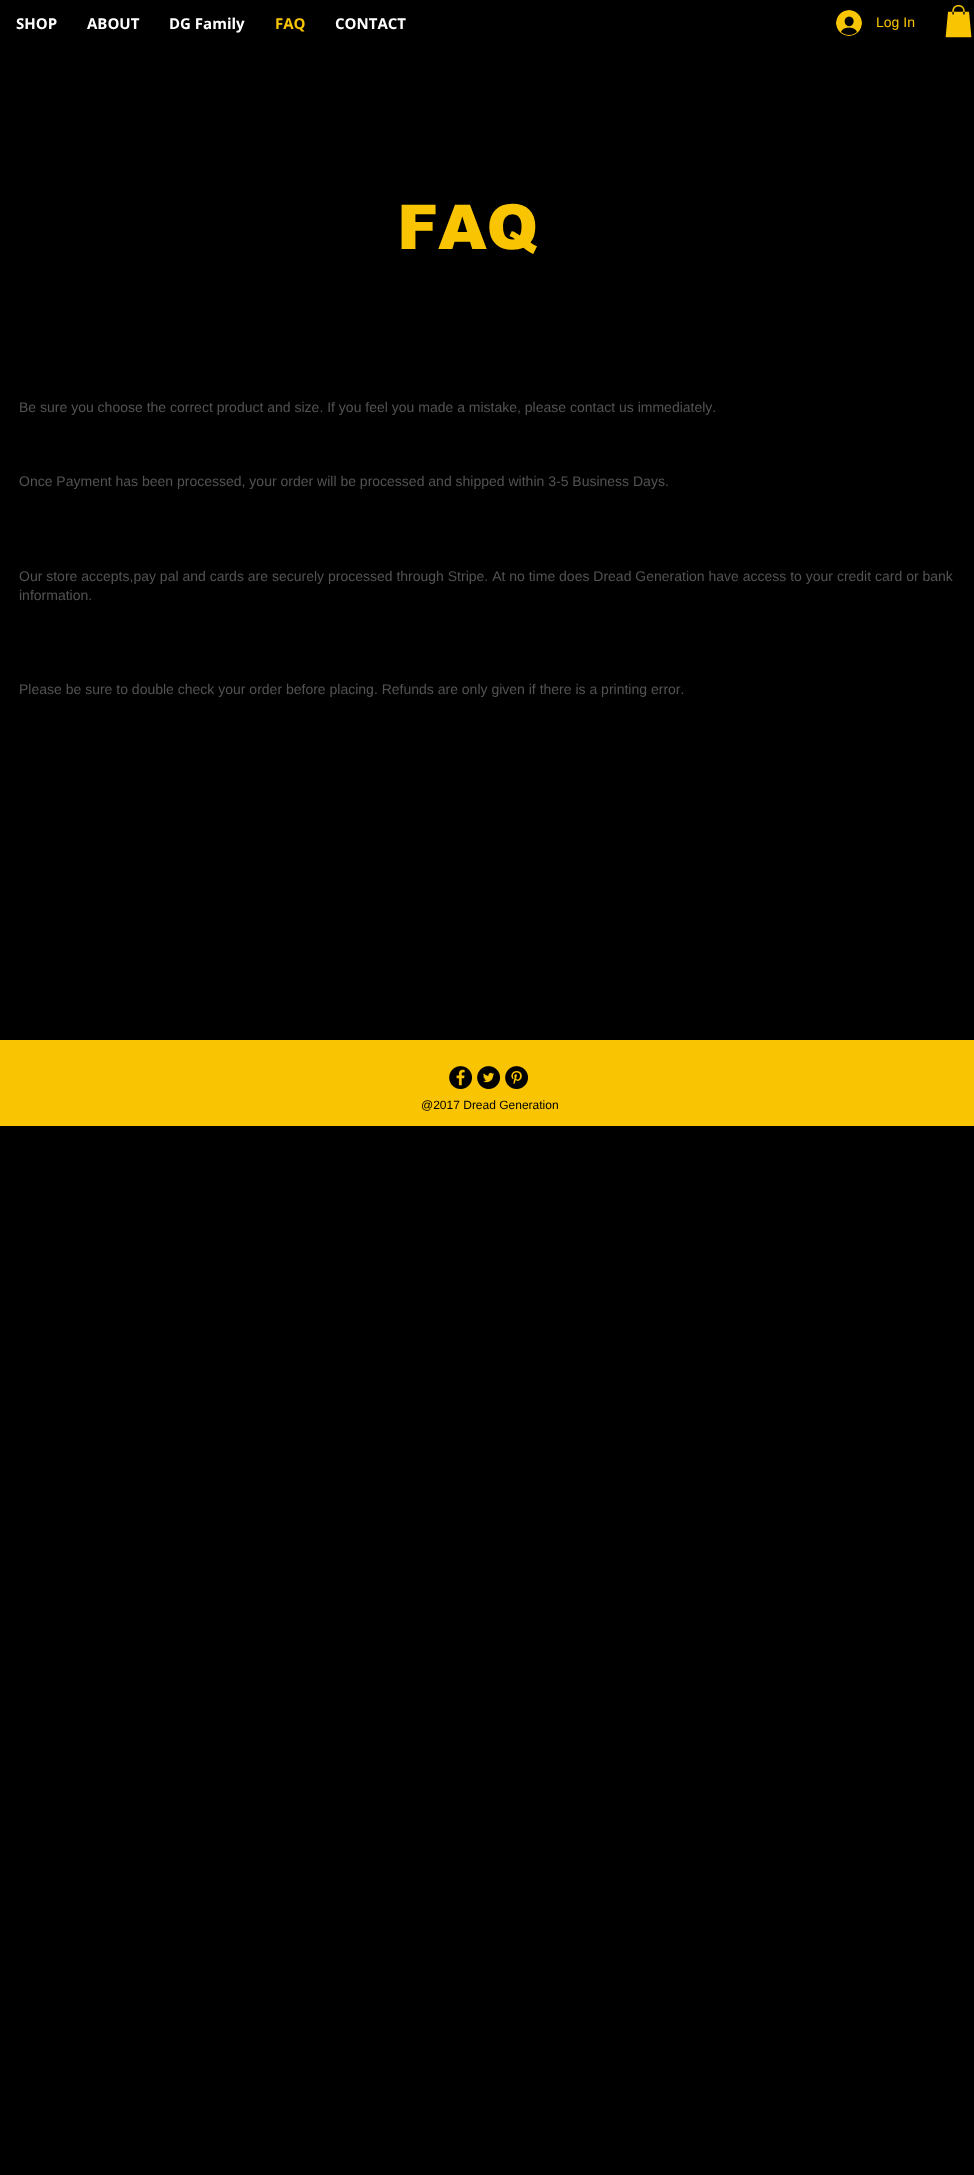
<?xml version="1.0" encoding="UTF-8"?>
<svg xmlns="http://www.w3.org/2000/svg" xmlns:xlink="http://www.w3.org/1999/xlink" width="974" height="2175">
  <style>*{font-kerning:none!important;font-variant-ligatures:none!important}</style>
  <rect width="100%" height="100%" fill="#000000" />
  <image x="836" y="10" width="26" height="26" xlink:href="image1.png" />
  <image x="945" y="5" width="27" height="33" xlink:href="image2.png" />
  <rect y="1040" width="974" height="86" fill="#f9c402" />
  <image x="449" y="1066" width="23" height="23" xlink:href="image3.png" />
  <image x="477" y="1066" width="23" height="23" xlink:href="image4.png" />
  <image x="505" y="1066" width="23" height="23" xlink:href="image5.png" />
  <text x="16" y="29" style="font-family: Open Sans; font-size: 15px; font-weight: bold; fill: #ffffff">SHOP</text>
  <text x="87" y="29" style="font-family: Open Sans; font-size: 15px; font-weight: bold; fill: #ffffff">ABOUT</text>
  <text x="169" y="29" style="font-family: Open Sans; font-size: 15px; font-weight: bold; fill: #ffffff">DG Family</text>
  <text x="275" y="29" style="font-family: Open Sans; font-size: 15px; font-weight: bold; fill: #f9c402">FAQ</text>
  <text x="335" y="29" style="font-family: Open Sans; font-size: 15px; font-weight: bold; fill: #ffffff">CONTACT</text>
  <text x="876" y="27" style="font-family: Liberation Sans; font-size: 14px; fill: #f9c402">Log In</text>
  <text x="397" y="249" style="font-family: arial; font-size: 62px; font-weight: 900; fill: #f9c402">FAQ</text>
  <text x="19" y="412" style="font-family: Liberation Sans; font-size: 14px; fill: #535353">Be sure you choose the correct product and size. If you feel you made a mistake, please contact us immediately.</text>
  <text x="19" y="486" style="font-family: Liberation Sans; font-size: 14px; fill: #535353">Once Payment has been processed, your order will be processed and shipped within 3-5 Business Days.</text>
  <text x="19" y="581" style="font-family: Liberation Sans; font-size: 14px; fill: #535353">Our store accepts,pay pal and cards are securely processed through Stripe. At no time does Dread Generation have access to your credit card or bank</text>
  <text x="19" y="600" style="font-family: Liberation Sans; font-size: 14px; fill: #535353">information.</text>
  <text x="19" y="694" style="font-family: Liberation Sans; font-size: 14px; fill: #535353">Please be sure to double check your order before placing. Refunds are only given if there is a printing error.</text>
  <text x="421" y="1109" style="font-family: Liberation Sans; font-size: 12px; fill: #000000">@2017 Dread Generation</text>
</svg>
